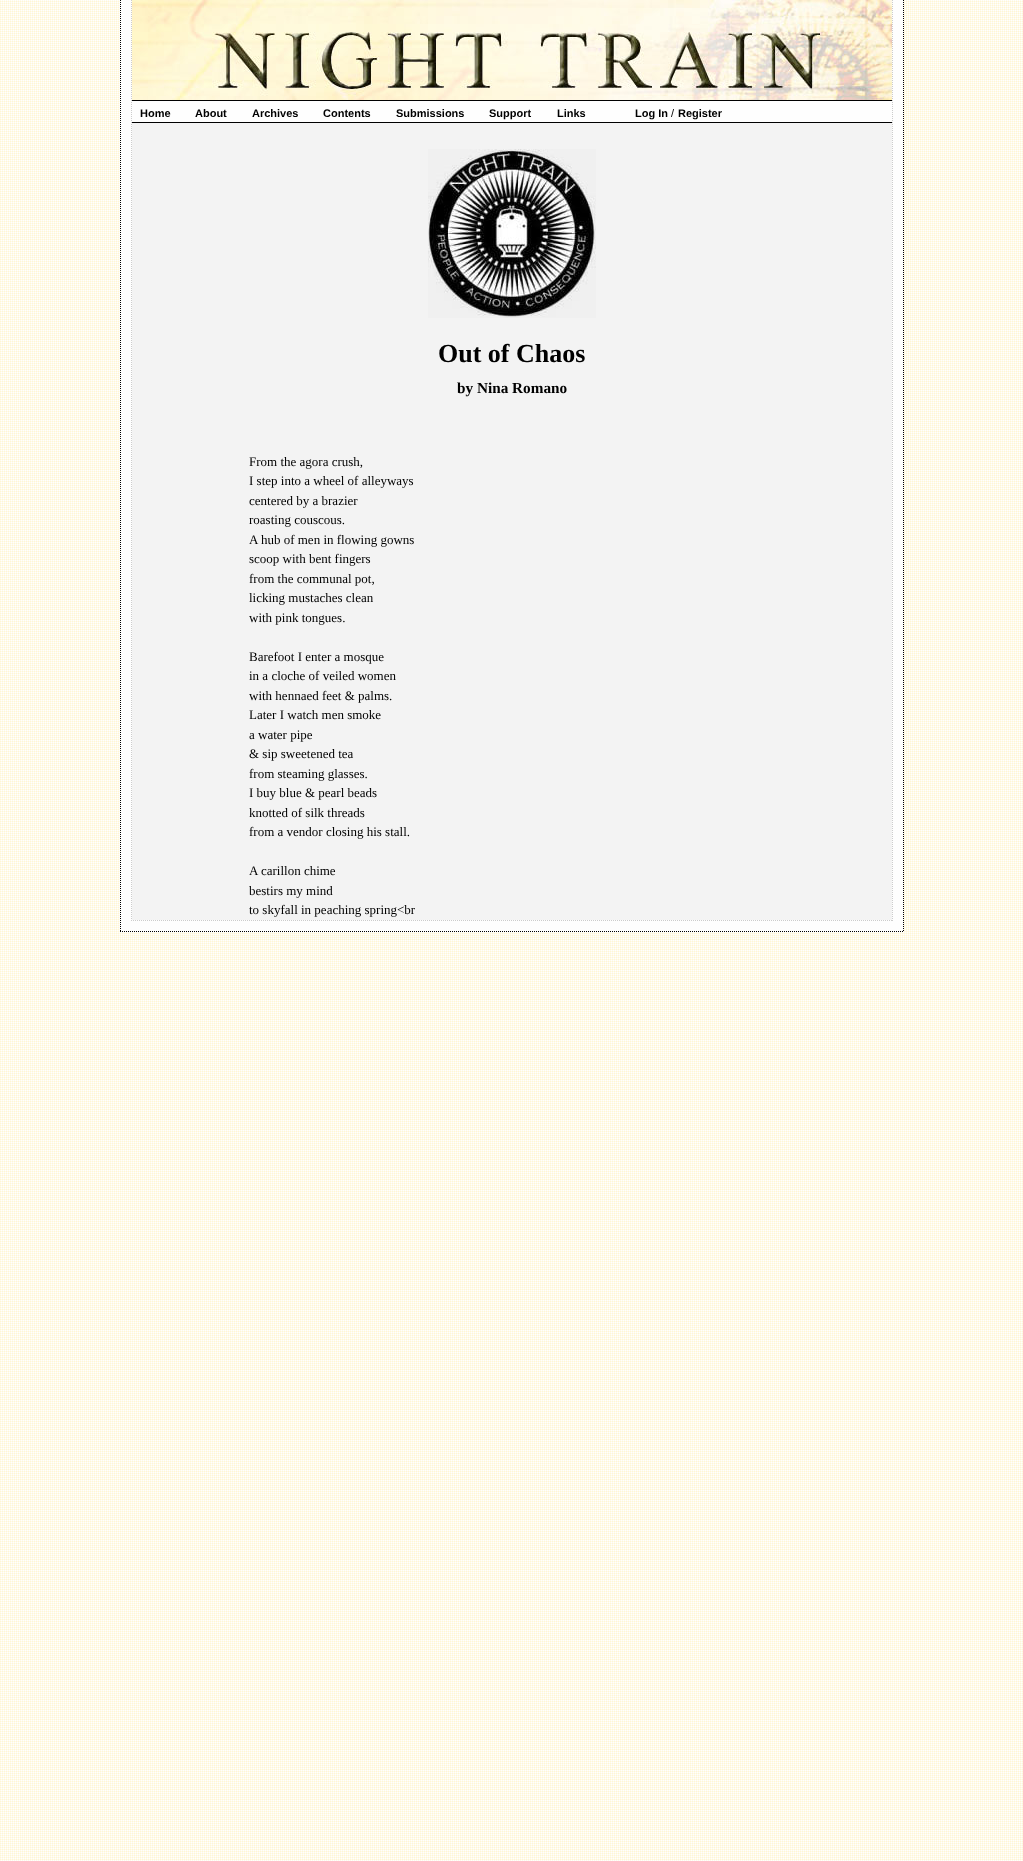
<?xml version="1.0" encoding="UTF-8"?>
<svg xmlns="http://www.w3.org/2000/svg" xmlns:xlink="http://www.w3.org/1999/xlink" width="1023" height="1861">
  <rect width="100%" height="100%" fill="#ffffff" />
  <image x="0" y="0" width="1023" height="1861" xlink:href="image1.png" />
  <rect x="120" width="784" height="932" fill="#fefefe" />
  <path d="M 903.5 0 v 932" fill="none" stroke="#000000" stroke-dasharray="1 1" />
  <path d="M 120 931.5 h 784" fill="none" stroke="#000000" stroke-dasharray="1 1" />
  <path d="M 120.5 0 v 932" fill="none" stroke="#000000" stroke-dasharray="1 1" />
  <path d="M 892.5 0 v 921" fill="none" stroke="#cccccc" stroke-dasharray="1 1" />
  <path d="M 131 920.5 h 762" fill="none" stroke="#cccccc" stroke-dasharray="1 1" />
  <path d="M 131.5 0 v 921" fill="none" stroke="#cccccc" stroke-dasharray="1 1" />
  <image x="132" y="0" width="760" height="100" xlink:href="image2.png" />
  <rect x="132" y="100" width="760" height="1" fill="#000000" />
  <rect x="132" y="123" width="760" height="797" fill="#f3f3f3" />
  <rect x="132" y="122" width="760" height="1" fill="#000000" />
  <image x="428" y="149" width="168" height="169" xlink:href="image3.png" />
  <text x="140" y="117" style="font-family: Liberation Sans; font-size: 11px; font-weight: bold; fill: #000000">Home</text>
  <text x="195" y="117" style="font-family: Liberation Sans; font-size: 11px; font-weight: bold; fill: #000000">About</text>
  <text x="252" y="117" style="font-family: Liberation Sans; font-size: 11px; font-weight: bold; fill: #000000">Archives</text>
  <text x="323" y="117" style="font-family: Liberation Sans; font-size: 11px; font-weight: bold; fill: #000000">Contents</text>
  <text x="396" y="117" style="font-family: Liberation Sans; font-size: 11px; font-weight: bold; fill: #000000">Submissions</text>
  <text x="489" y="117" style="font-family: Liberation Sans; font-size: 11px; font-weight: bold; fill: #000000">Support</text>
  <text x="557" y="117" style="font-family: Liberation Sans; font-size: 11px; font-weight: bold; fill: #000000">Links</text>
  <text x="635" y="117" style="font-family: Liberation Sans; font-size: 11px; font-weight: bold; fill: #000000">Log In</text>
  <text x="671" y="117" style="font-family: Liberation Sans; font-size: 11px; fill: #000000">/</text>
  <text x="678" y="117" style="font-family: Liberation Sans; font-size: 11px; font-weight: bold; fill: #000000">Register</text>
  <text x="438" y="362" style="font-family: Liberation Serif; font-size: 26px; font-weight: bold; fill: #000000">Out of Chaos</text>
  <text x="457" y="393" style="font-family: Liberation Serif; font-size: 15.25px; font-weight: bold; fill: #000000">by Nina Romano</text>
  <text x="249" y="466" style="font-family: Liberation Serif; font-size: 13px; fill: #000000">From the agora crush,</text>
  <text x="249" y="485" style="font-family: Liberation Serif; font-size: 13px; fill: #000000">I step into a wheel of alleyways</text>
  <text x="249" y="505" style="font-family: Liberation Serif; font-size: 13px; fill: #000000">centered by a brazier</text>
  <text x="249" y="524" style="font-family: Liberation Serif; font-size: 13px; fill: #000000">roasting couscous.</text>
  <text x="249" y="544" style="font-family: Liberation Serif; font-size: 13px; fill: #000000">A hub of men in flowing gowns</text>
  <text x="249" y="563" style="font-family: Liberation Serif; font-size: 13px; fill: #000000">scoop with bent fingers</text>
  <text x="249" y="583" style="font-family: Liberation Serif; font-size: 13px; fill: #000000">from the communal pot,</text>
  <text x="249" y="602" style="font-family: Liberation Serif; font-size: 13px; fill: #000000">licking mustaches clean</text>
  <text x="249" y="622" style="font-family: Liberation Serif; font-size: 13px; fill: #000000">with pink tongues.</text>
  <text x="249" y="661" style="font-family: Liberation Serif; font-size: 13px; fill: #000000">Barefoot I enter a mosque</text>
  <text x="249" y="680" style="font-family: Liberation Serif; font-size: 13px; fill: #000000">in a cloche of veiled women</text>
  <text x="249" y="700" style="font-family: Liberation Serif; font-size: 13px; fill: #000000">with hennaed feet &amp; palms.</text>
  <text x="249" y="719" style="font-family: Liberation Serif; font-size: 13px; fill: #000000">Later I watch men smoke</text>
  <text x="249" y="739" style="font-family: Liberation Serif; font-size: 13px; fill: #000000">a water pipe</text>
  <text x="249" y="758" style="font-family: Liberation Serif; font-size: 13px; fill: #000000">&amp; sip sweetened tea</text>
  <text x="249" y="778" style="font-family: Liberation Serif; font-size: 13px; fill: #000000">from steaming glasses.</text>
  <text x="249" y="797" style="font-family: Liberation Serif; font-size: 13px; fill: #000000">I buy blue &amp; pearl beads</text>
  <text x="249" y="817" style="font-family: Liberation Serif; font-size: 13px; fill: #000000">knotted of silk threads</text>
  <text x="249" y="836" style="font-family: Liberation Serif; font-size: 13px; fill: #000000">from a vendor closing his stall.</text>
  <text x="249" y="875" style="font-family: Liberation Serif; font-size: 13px; fill: #000000">A carillon chime</text>
  <text x="249" y="895" style="font-family: Liberation Serif; font-size: 13px; fill: #000000">bestirs my mind</text>
  <text x="249" y="914" style="font-family: Liberation Serif; font-size: 13px; fill: #000000">to skyfall in peaching spring&lt;br</text>
</svg>
